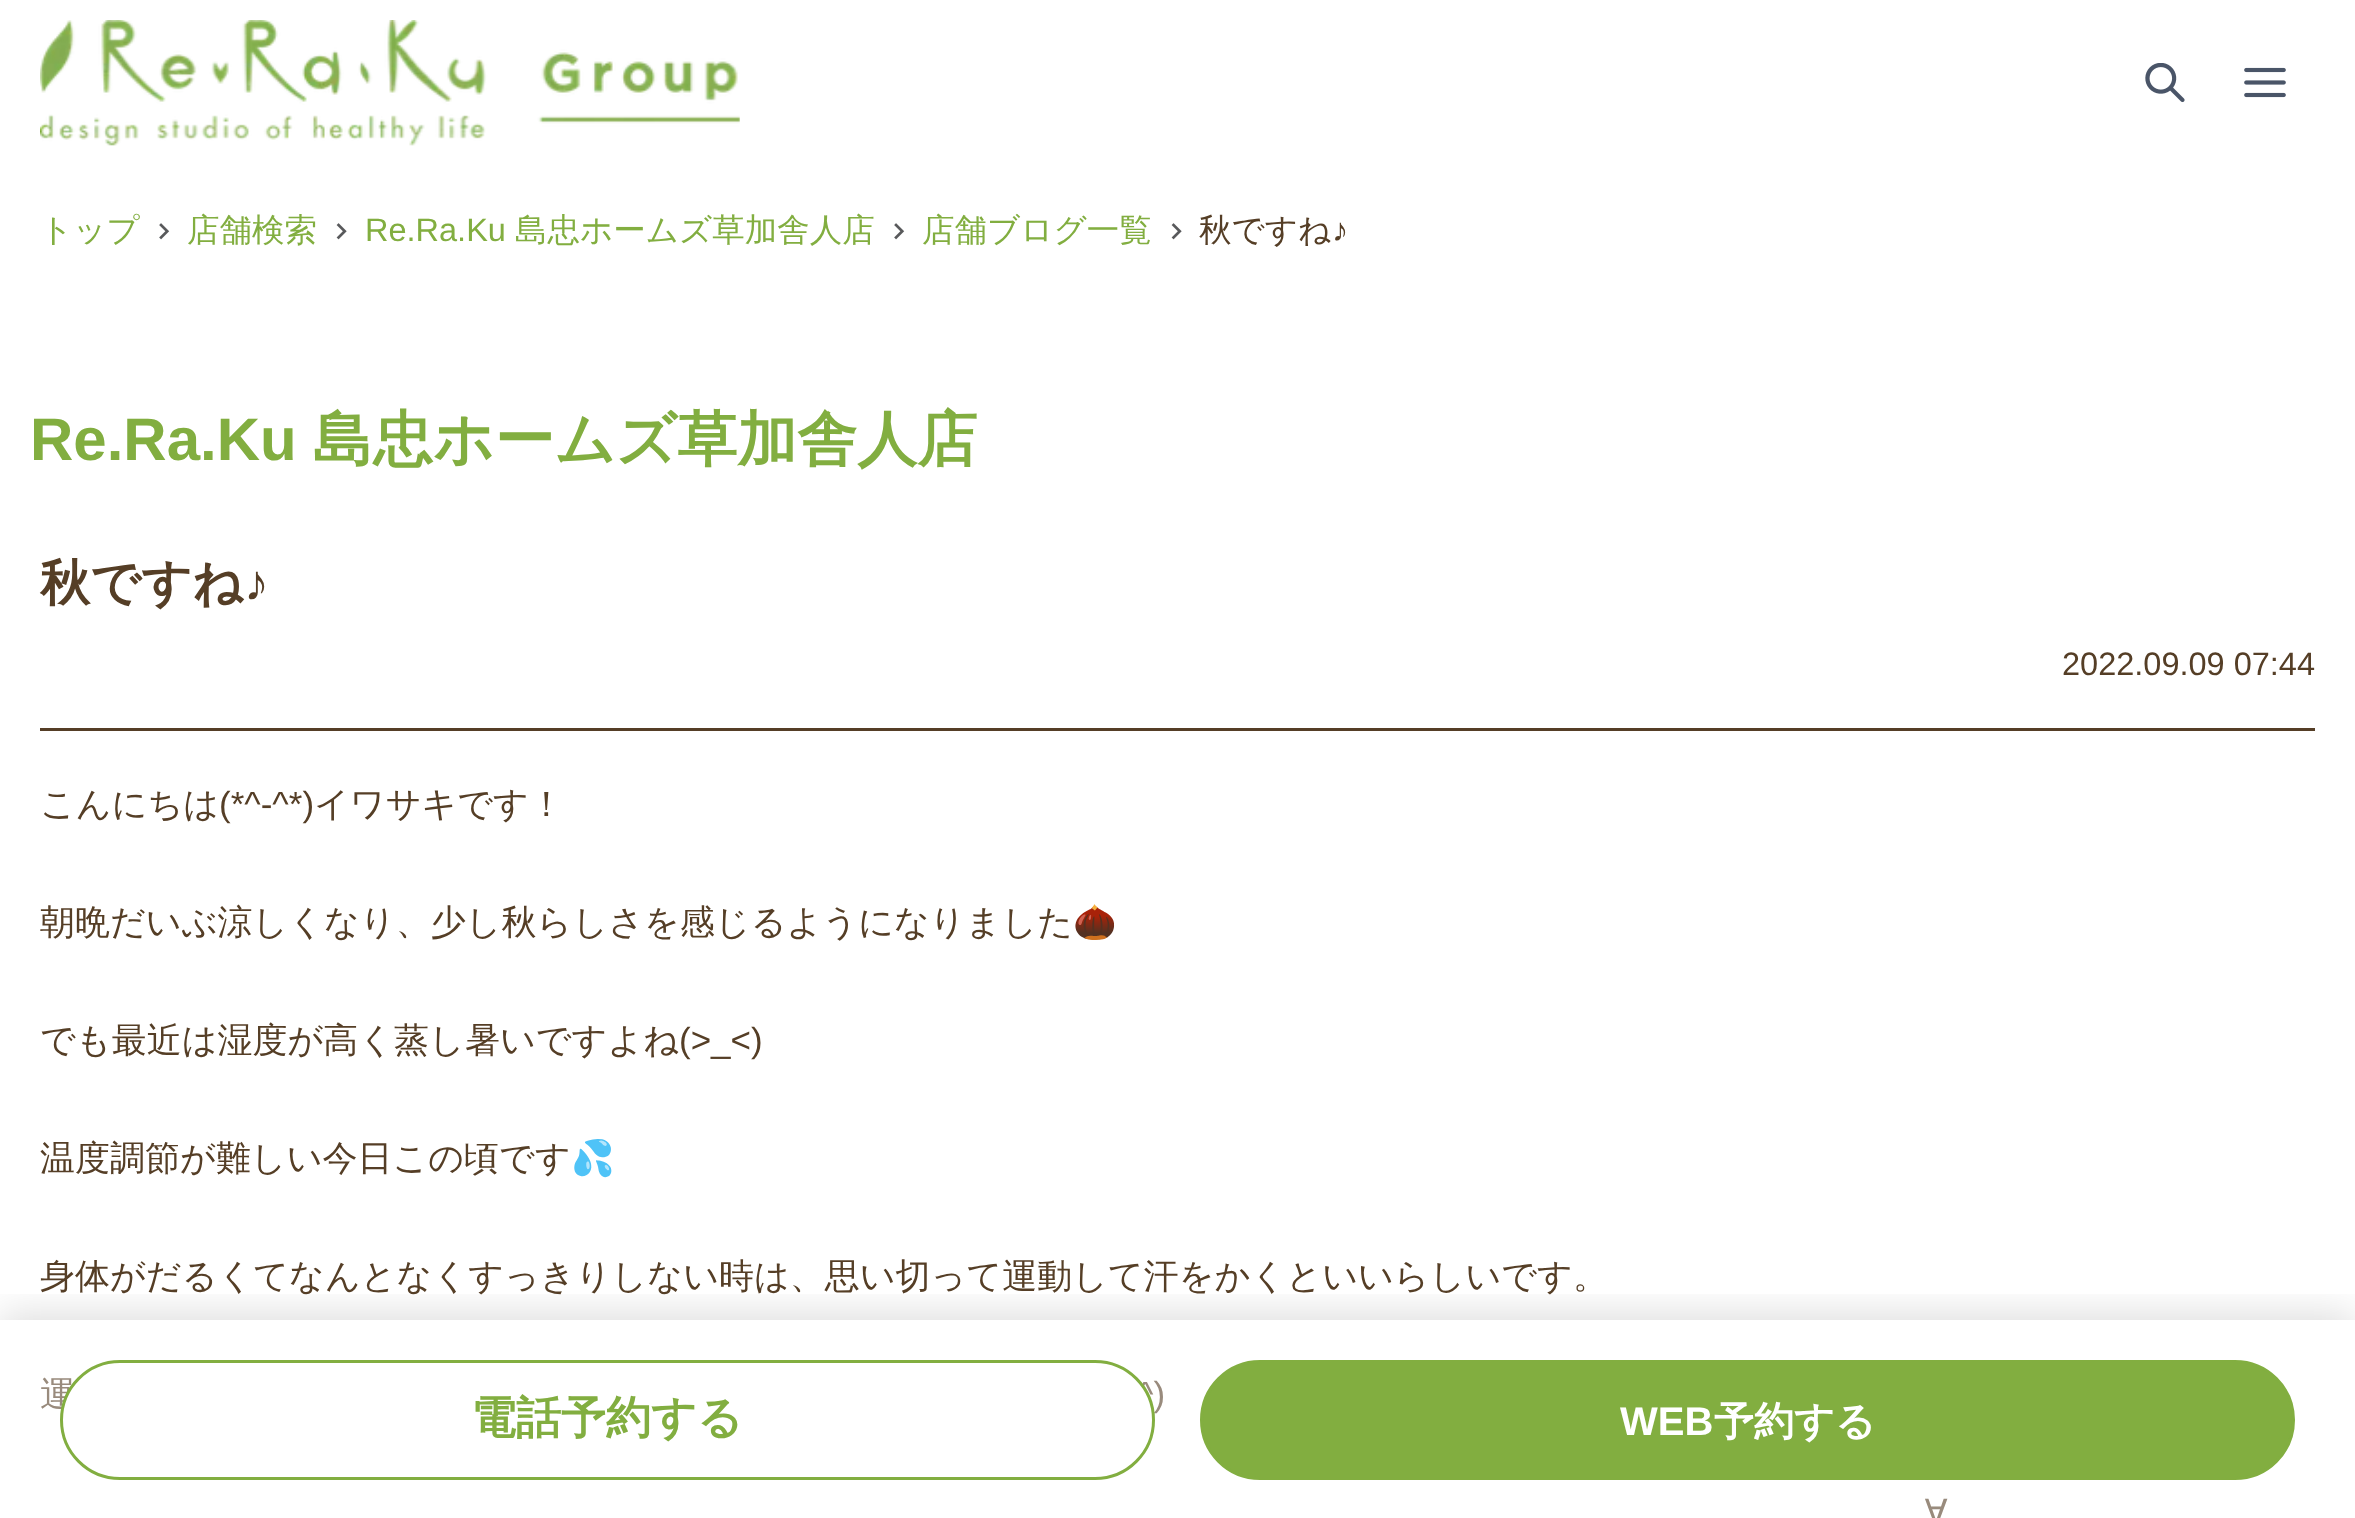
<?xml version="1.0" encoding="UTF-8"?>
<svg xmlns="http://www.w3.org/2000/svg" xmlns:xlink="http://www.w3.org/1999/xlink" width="2355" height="1518">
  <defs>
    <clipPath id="clip1"><rect x="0" y="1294" width="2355" height="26" /></clipPath>
  </defs>
  <rect width="100%" height="100%" fill="#ffffff" />
  <image x="40" y="20" width="700" height="126" xlink:href="image1.png" />
  <image x="2145" y="63" width="40" height="40" xlink:href="image2.png" />
  <image x="2244" y="67" width="42" height="31" xlink:href="image3.png" />
  <image x="159" y="223" width="11" height="17" xlink:href="image4.png" />
  <image x="336" y="223" width="11" height="17" xlink:href="image5.png" />
  <image x="894" y="223" width="11" height="17" xlink:href="image4.png" />
  <image x="1171" y="223" width="11" height="17" xlink:href="image5.png" />
  <rect x="40" y="728" width="2275" height="3" fill="#553e26" />
  <g clip-path="url(#clip1)">
    <rect y="1315" width="2355" height="200" fill="#000000" fill-opacity="0.14" filter="blur(20px)" />
  </g>
  <rect x="1201.5" y="1361.5" width="1092" height="117" rx="58.5" fill="#82ae40" stroke="#82ae40" stroke-width="3" />
  <text x="40" y="241" style="font-family: WenQuanYi Zen Hei; font-size: 32.5px; font-weight: 500; fill: #82ae40">トップ</text>
  <text x="187" y="241" style="font-family: WenQuanYi Zen Hei; font-size: 32.5px; font-weight: 500; fill: #82ae40">店舗検索</text>
  <text x="365" y="241" style="font-family: Liberation Sans; font-size: 32.5px; fill: #82ae40">Re.Ra.Ku</text>
  <text x="515" y="241" style="font-family: WenQuanYi Zen Hei; font-size: 32.5px; font-weight: 500; fill: #82ae40">島忠ホームズ草加舎人店</text>
  <text x="922" y="241" style="font-family: WenQuanYi Zen Hei; font-size: 32.5px; font-weight: 500; fill: #82ae40">店舗ブログ一覧</text>
  <text x="1199" y="241" style="font-family: WenQuanYi Zen Hei; font-size: 32.5px; font-weight: 500; fill: #553e26">秋ですね</text>
  <text x="1332" y="241" style="font-family: Liberation Sans; font-size: 32.5px; fill: #553e26">♪</text>
  <text x="30" y="460" style="font-family: Liberation Sans; font-size: 60px; font-weight: bold; fill: #82ae40">Re.Ra.Ku</text>
  <text x="313" y="460" style="font-family: WenQuanYi Zen Hei; font-size: 60px; font-weight: bold; fill: #82ae40">島忠ホームズ草加舎人店</text>
  <text x="40" y="600" style="font-family: WenQuanYi Zen Hei; font-size: 50px; font-weight: bold; fill: #553e26">秋ですね</text>
  <text x="244" y="600" style="font-family: Liberation Sans; font-size: 50px; font-weight: bold; fill: #553e26">♪</text>
  <text x="2062" y="675" style="font-family: Liberation Sans; font-size: 32.5px; fill: #553e26">2022.09.09 07:44</text>
  <text x="40" y="816" style="font-family: WenQuanYi Zen Hei; font-size: 35px; font-weight: 500; fill: #553e26">こんにちは</text>
  <text x="219" y="816" style="font-family: Liberation Sans; font-size: 35px; fill: #553e26">(*^-^*)</text>
  <text x="314" y="816" style="font-family: WenQuanYi Zen Hei; font-size: 35px; font-weight: 500; fill: #553e26">イワサキです！</text>
  <text x="40" y="934" style="font-family: WenQuanYi Zen Hei; font-size: 35px; font-weight: 500; fill: #553e26">朝晩だいぶ涼しくなり、少し秋らしさを感じるようになりました</text>
  <text x="1073" y="934" style="font-family: Noto Color Emoji; font-size: 35px; fill: #553e26">🌰</text>
  <text x="40" y="1052" style="font-family: WenQuanYi Zen Hei; font-size: 35px; font-weight: 500; fill: #553e26">でも最近は湿度が高く蒸し暑いですよね</text>
  <text x="679" y="1052" style="font-family: Liberation Sans; font-size: 35px; fill: #553e26">(&gt;_&lt;)</text>
  <text x="40" y="1170" style="font-family: WenQuanYi Zen Hei; font-size: 35px; font-weight: 500; fill: #553e26">温度調節が難しい今日この頃です</text>
  <text x="571" y="1170" style="font-family: Noto Color Emoji; font-size: 35px; fill: #553e26">💦</text>
  <text x="40" y="1288" style="font-family: WenQuanYi Zen Hei; font-size: 35px; font-weight: 500; fill: #553e26">身体がだるくてなんとなくすっきりしない時は、思い切って運動して汗をかくといいらしいです。</text>
  <text x="40" y="1406" style="font-family: WenQuanYi Zen Hei; font-size: 35px; font-weight: 500; fill: #998b7d">運</text>
  <text x="1137" y="1406" style="font-family: Liberation Sans; font-size: 35px; fill: #998b7d">^)</text>
  <text x="1925" y="1524" style="font-family: WenQuanYi Zen Hei; font-size: 35px; font-weight: 500; fill: #998b7d">∀</text>
  <rect x="61.5" y="1361.5" width="1092" height="117" rx="58.5" fill="#ffffff" stroke="#82ae40" stroke-width="3" />
  <text x="471" y="1433" style="font-family: WenQuanYi Zen Hei; font-size: 45px; font-weight: bold; fill: #82ae40">電話予約する</text>
  <text x="1620" y="1435" style="font-family: Liberation Sans; font-size: 40px; font-weight: bold; fill: #ffffff">WEB</text>
  <text x="1714" y="1435" style="font-family: WenQuanYi Zen Hei; font-size: 40px; font-weight: bold; fill: #ffffff">予約する</text>
</svg>
